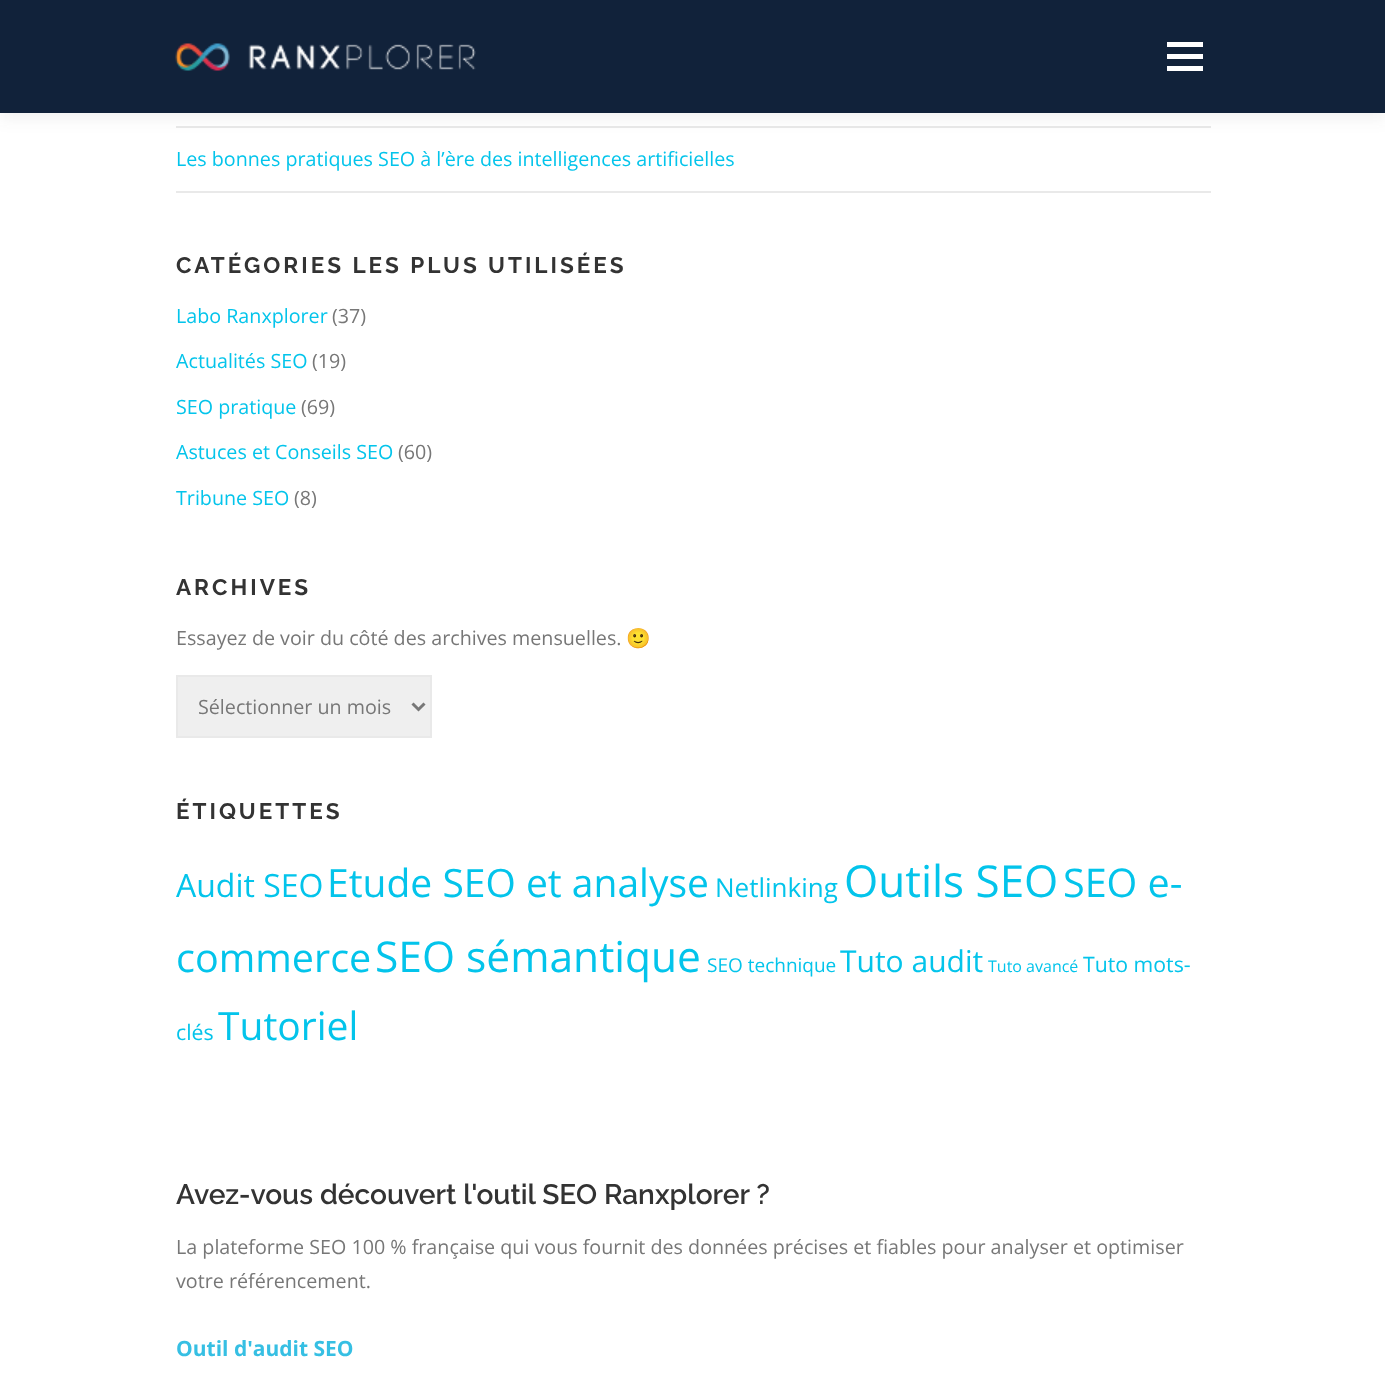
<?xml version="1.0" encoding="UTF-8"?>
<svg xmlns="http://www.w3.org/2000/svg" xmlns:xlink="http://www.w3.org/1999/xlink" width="1385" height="1383">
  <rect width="100%" height="100%" fill="#ffffff" />
  <rect x="176" y="126" width="1035" height="2" fill="#e9e9e9" />
  <rect y="8" width="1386" height="112" fill="#323232" fill-opacity="0.06" filter="blur(7.5px)" />
  <rect width="1385" height="113" fill="#11223a" />
  <image x="175" y="43" width="301" height="28" xlink:href="image1.png" />
  <rect x="1167" y="54" width="36" height="5" fill="#ffffff" />
  <rect x="1167" y="42" width="36" height="5" fill="#ffffff" />
  <rect x="1167" y="66" width="36" height="5" fill="#ffffff" />
  <rect x="176" y="191" width="1035" height="2" fill="#e9e9e9" />
  <rect x="177" y="676" width="254" height="61" fill="#efefef" stroke="#e9e9e9" stroke-width="2" />
  <path d="M 412.5 703.5 l 6 6 l 6 -6" fill="none" stroke="#777777" stroke-width="3" />
  <text x="176" y="166" style="font-family: Open Sans; font-size: 19.7px; fill: #03c4eb">Les bonnes pratiques SEO à l’ère des intelligences artificielles</text>
  <text x="176" y="273" style="font-family: Raleway; font-size: 22.5px; font-weight: bold; letter-spacing: 3px; fill: #333333">CATÉGORIES LES PLUS UTILISÉES</text>
  <text x="176" y="323" style="font-family: Open Sans; font-size: 19.7px; fill: #03c4eb">Labo Ranxplorer</text>
  <text x="332" y="323" style="font-family: Open Sans; font-size: 19.7px; fill: #777777">(37)</text>
  <text x="176" y="368" style="font-family: Open Sans; font-size: 19.7px; fill: #03c4eb">Actualités SEO</text>
  <text x="312" y="368" style="font-family: Open Sans; font-size: 19.7px; fill: #777777">(19)</text>
  <text x="176" y="414" style="font-family: Open Sans; font-size: 19.7px; fill: #03c4eb">SEO pratique</text>
  <text x="301" y="414" style="font-family: Open Sans; font-size: 19.7px; fill: #777777">(69)</text>
  <text x="176" y="459" style="font-family: Open Sans; font-size: 19.7px; fill: #03c4eb">Astuces et Conseils SEO</text>
  <text x="398" y="459" style="font-family: Open Sans; font-size: 19.7px; fill: #777777">(60)</text>
  <text x="176" y="505" style="font-family: Open Sans; font-size: 19.7px; fill: #03c4eb">Tribune SEO</text>
  <text x="294" y="505" style="font-family: Open Sans; font-size: 19.7px; fill: #777777">(8)</text>
  <text x="176" y="595" style="font-family: Raleway; font-size: 22.5px; font-weight: bold; letter-spacing: 3px; fill: #333333">ARCHIVES</text>
  <text x="176" y="645" style="font-family: Open Sans; font-size: 19.7px; fill: #777777">Essayez de voir du côté des archives mensuelles.</text>
  <text x="626" y="645" style="font-family: Noto Color Emoji; font-size: 19.7px; fill: #777777">🙂</text>
  <text x="198" y="714" style="font-family: Open Sans; font-size: 19.7px; fill: #777777">Sélectionner un mois</text>
  <text x="176" y="819" style="font-family: Raleway; font-size: 22.5px; font-weight: bold; letter-spacing: 3px; fill: #333333">ÉTIQUETTES</text>
  <text x="176" y="897" style="font-family: Open Sans; font-size: 32px; fill: #03c4eb">Audit SEO</text>
  <text x="327" y="897" style="font-family: Open Sans; font-size: 39px; fill: #03c4eb">Etude SEO et analyse</text>
  <text x="715" y="897" style="font-family: Open Sans; font-size: 26px; fill: #03c4eb">Netlinking</text>
  <text x="844" y="897" style="font-family: Open Sans; font-size: 44px; fill: #03c4eb">Outils SEO</text>
  <text x="1063" y="897" style="font-family: Open Sans; font-size: 39.5px; fill: #03c4eb">SEO e-</text>
  <text x="176" y="972" style="font-family: Open Sans; font-size: 39.5px; fill: #03c4eb">commerce</text>
  <text x="375" y="972" style="font-family: Open Sans; font-size: 42.5px; fill: #03c4eb">SEO sémantique</text>
  <text x="707" y="972" style="font-family: Open Sans; font-size: 19px; fill: #03c4eb">SEO technique</text>
  <text x="840" y="972" style="font-family: Open Sans; font-size: 30px; fill: #03c4eb">Tuto audit</text>
  <text x="988" y="972" style="font-family: Open Sans; font-size: 16px; fill: #03c4eb">Tuto avancé</text>
  <text x="1083" y="972" style="font-family: Open Sans; font-size: 21.25px; fill: #03c4eb">Tuto mots-</text>
  <text x="176" y="1040" style="font-family: Open Sans; font-size: 21.25px; fill: #03c4eb">clés</text>
  <text x="218" y="1040" style="font-family: Open Sans; font-size: 39px; fill: #03c4eb">Tutoriel</text>
  <text x="176" y="1204" style="font-family: Raleway; font-size: 28.1px; font-weight: 600; fill: #333333">Avez-vous découvert l'outil SEO Ranxplorer ?</text>
  <text x="176" y="1254" style="font-family: Open Sans; font-size: 19.7px; fill: #777777">La plateforme SEO 100 % française qui vous fournit des données précises et fiables pour analyser et optimiser</text>
  <text x="176" y="1288" style="font-family: Open Sans; font-size: 19.7px; fill: #777777">votre référencement.</text>
  <text x="176" y="1356" style="font-family: Open Sans; font-size: 21px; font-weight: bold; fill: #36bfe3">Outil d'audit SEO</text>
</svg>
